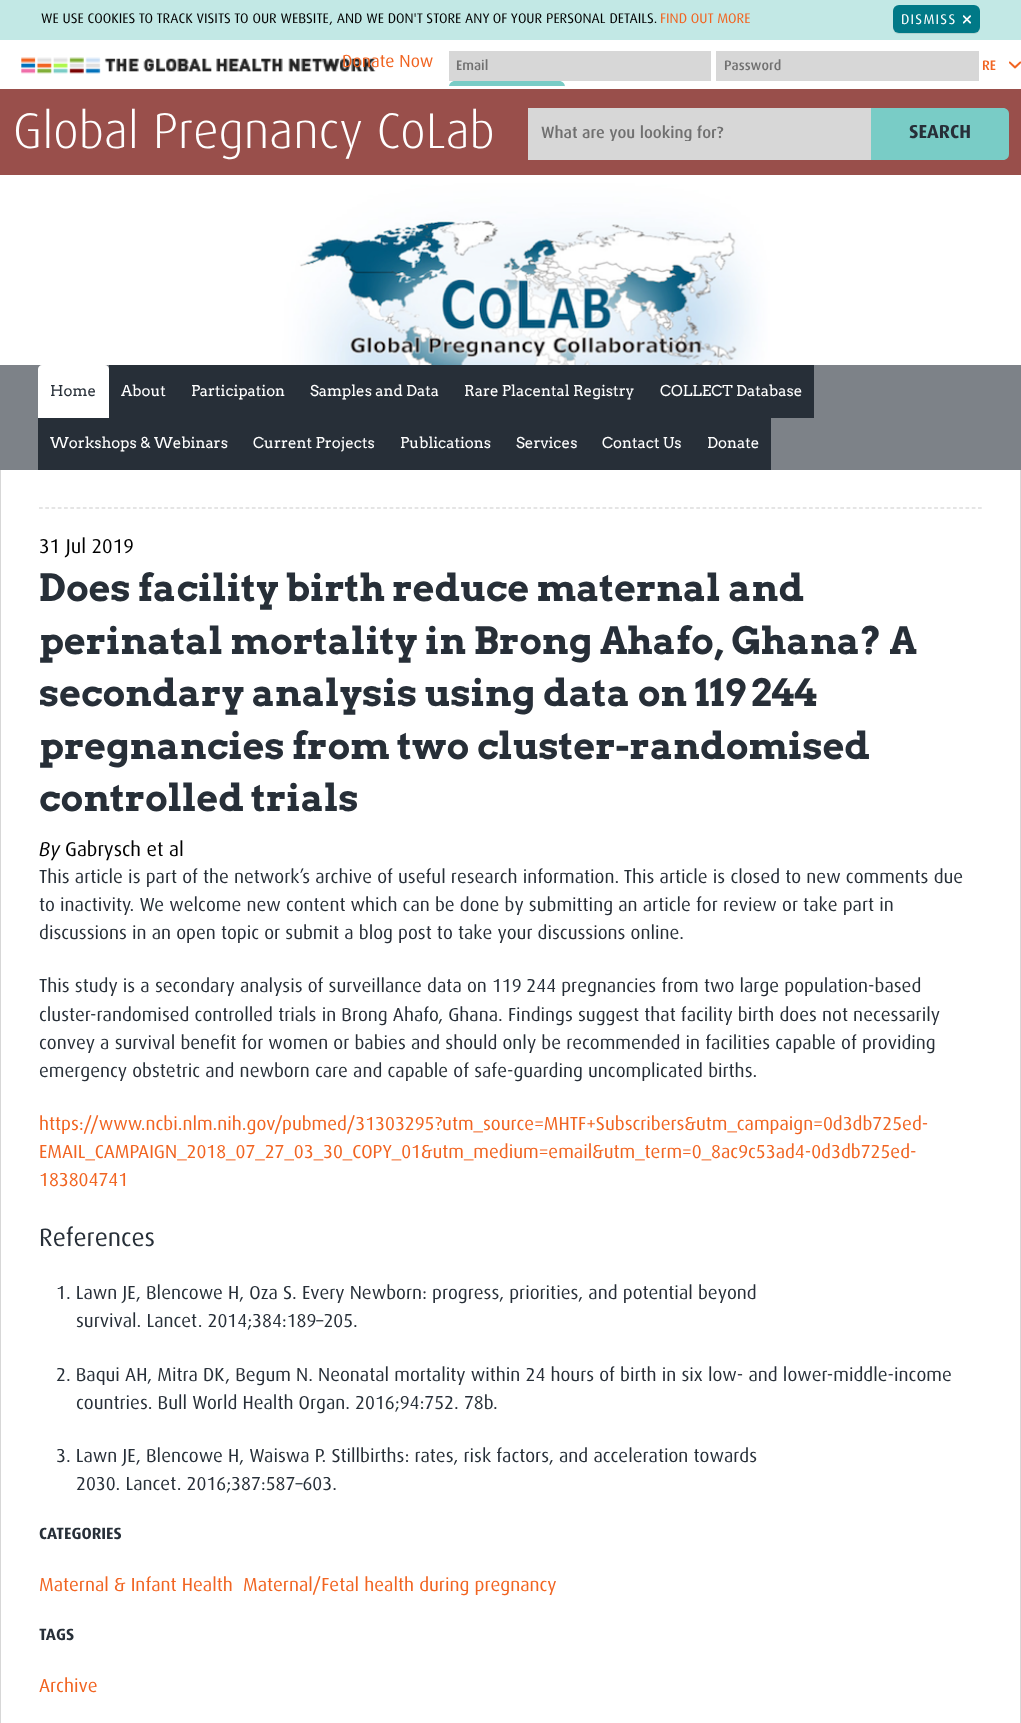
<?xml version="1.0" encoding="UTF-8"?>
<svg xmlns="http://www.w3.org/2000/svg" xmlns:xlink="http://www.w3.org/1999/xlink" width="1021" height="1723">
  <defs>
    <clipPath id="clip1"><rect x="540" y="125" width="325" height="16" /></clipPath>
  </defs>
  <rect width="100%" height="100%" fill="#ffffff" />
  <rect width="1021" height="40" fill="#c2e8e5" />
  <rect x="893" y="6" width="87" height="28" rx="6" fill="#0d1314" fill-opacity="0.1" filter="blur(0.5px)" />
  <rect x="893" y="5" width="87" height="28" rx="6" fill="#007987" />
  <image x="963" y="15" width="8" height="9" xlink:href="image1.png" />
  <image x="21" y="57" width="355" height="17" xlink:href="image2.png" />
  <rect x="449" y="51" width="262" height="30" fill="#d7d7d7" />
  <rect x="716" y="51" width="263" height="30" fill="#d7d7d7" />
  <path d="M 455 81 h 104 c 3.5 0 6 2.5 6 6 v -1 h -116 v 1 c 0 -3.5 2.5 -6 6 -6 z" fill="#79ccc6" />
  <image x="1009" y="61" width="12" height="8" xlink:href="image3.png" />
  <rect y="89" width="1021" height="86" fill="#994f4b" />
  <rect x="528" y="108" width="343" height="52" fill="#d7d7d7" />
  <path d="M 871 108 h 132 c 3.5 0 6 2.5 6 6 v 40 c 0 3.5 -2.5 6 -6 6 h -132 z" fill="#79ccc6" />
  <image x="0" y="175" width="1021" height="295" xlink:href="image4.png" />
  <rect y="365" width="1021" height="105" fill="#272f38" fill-opacity="0.6" />
  <path d="M 42 365 h 63 c 2 0 4 2 4 4 v 49 h -71 v -49 c 0 -2 2 -4 4 -4 z" fill="#ffffff" />
  <rect x="109" y="365" width="705" height="53" fill="#272f38" />
  <rect x="38" y="418" width="733" height="52" fill="#272f38" />
  <rect x="1020" y="470" width="1" height="1253" fill="#d7d7d7" />
  <rect y="470" width="1" height="1253" fill="#d7d7d7" />
  <path d="M 39 508 h 943.5" fill="none" stroke="#cccccc" stroke-width="1.2" stroke-dasharray="3.75 2.51" />
  <text x="41" y="23" style="font-family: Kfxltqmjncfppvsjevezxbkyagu; font-size: 14px; fill: #000000">WE USE COOKIES TO TRACK VISITS TO OUR WEBSITE, AND WE DON'T STORE ANY OF YOUR PERSONAL DETAILS.</text>
  <text x="660" y="23" style="font-family: Kfxltqmjncfppvsjevezxbkyagu; font-size: 14px; fill: #f16421">FIND OUT MORE</text>
  <text x="901" y="24" style="font-family: Kfxltqmjncfppvsjevezxbkyagu; font-size: 14px; letter-spacing: 1.25px; fill: #ffffff">DISMISS</text>
  <text x="342" y="67" style="font-family: Kfxltqmjncfppvsjevezxbkyagu; font-size: 17.5px; fill: #f16421">Donate Now</text>
  <text x="456" y="70" style="font-family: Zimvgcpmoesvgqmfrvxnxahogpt; font-size: 13.75px; font-weight: 500; fill: #707070">Email</text>
  <text x="724" y="70" style="font-family: Zimvgcpmoesvgqmfrvxnxahogpt; font-size: 13.75px; font-weight: 500; fill: #707070">Password</text>
  <text x="982" y="70" style="font-family: Zimvgcpmoesvgqmfrvxnxahogpt; font-size: 13.75px; font-weight: 500; fill: #f16421">RE</text>
  <text x="13" y="148" style="font-family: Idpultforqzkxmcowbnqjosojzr; font-size: 50px; font-weight: 300; fill: #ffffff">Global Pregnancy CoLab</text>
  <g clip-path="url(#clip1)">
    <text x="541" y="138" style="font-family: Zimvgcpmoesvgqmfrvxnxahogpt; font-size: 16.25px; font-weight: 500; fill: #707070">What are you looking for?</text>
  </g>
  <text x="909" y="138" style="font-family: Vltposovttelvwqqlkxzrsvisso; font-size: 18.75px; font-weight: bold; fill: #272f38">SEARCH</text>
  <text x="50" y="396" style="font-family: Arvo; font-size: 15px; fill: #272f38">Home</text>
  <text x="121" y="396" style="font-family: Arvo; font-size: 15px; fill: #ffffff">About</text>
  <text x="191" y="396" style="font-family: Arvo; font-size: 15px; fill: #ffffff">Participation</text>
  <text x="310" y="396" style="font-family: Arvo; font-size: 15px; fill: #ffffff">Samples and Data</text>
  <text x="464" y="396" style="font-family: Arvo; font-size: 15px; fill: #ffffff">Rare Placental Registry</text>
  <text x="660" y="396" style="font-family: Arvo; font-size: 15px; fill: #ffffff">COLLECT Database</text>
  <text x="50" y="448" style="font-family: Arvo; font-size: 15px; fill: #ffffff">Workshops &amp; Webinars</text>
  <text x="253" y="448" style="font-family: Arvo; font-size: 15px; fill: #ffffff">Current Projects</text>
  <text x="400" y="448" style="font-family: Arvo; font-size: 15px; fill: #ffffff">Publications</text>
  <text x="516" y="448" style="font-family: Arvo; font-size: 15px; fill: #ffffff">Services</text>
  <text x="602" y="448" style="font-family: Arvo; font-size: 15px; fill: #ffffff">Contact Us</text>
  <text x="707" y="448" style="font-family: Arvo; font-size: 15px; fill: #ffffff">Donate</text>
  <text x="39" y="553" style="font-family: Kfxltqmjncfppvsjevezxbkyagu; font-size: 20px; fill: #000000">31 Jul 2019</text>
  <text x="39" y="601" style="font-family: Arvo; font-size: 37.5px; font-weight: bold; fill: #272f38">Does facility birth reduce maternal and</text>
  <text x="39" y="654" style="font-family: Arvo; font-size: 37.5px; font-weight: bold; fill: #272f38">perinatal mortality in Brong Ahafo, Ghana? A</text>
  <text x="39" y="706" style="font-family: Arvo; font-size: 37.5px; font-weight: bold; fill: #272f38">secondary analysis using data on 119 244</text>
  <text x="39" y="759" style="font-family: Arvo; font-size: 37.5px; font-weight: bold; fill: #272f38">pregnancies from two cluster-randomised</text>
  <text x="39" y="811" style="font-family: Arvo; font-size: 37.5px; font-weight: bold; fill: #272f38">controlled trials</text>
  <text x="39" y="856" style="font-family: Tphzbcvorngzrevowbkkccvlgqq; font-size: 20px; fill: #000000">By</text>
  <text x="65" y="856" style="font-family: Kfxltqmjncfppvsjevezxbkyagu; font-size: 20px; fill: #000000">Gabrysch et al</text>
  <text x="39" y="883" style="font-family: Kfxltqmjncfppvsjevezxbkyagu; font-size: 18.75px; fill: #272f38">This article is part of the network’s archive of useful research information. This article is closed to new comments due</text>
  <text x="39" y="911" style="font-family: Kfxltqmjncfppvsjevezxbkyagu; font-size: 18.75px; fill: #272f38">to inactivity. We welcome new content which can be done by submitting an article for review or take part in</text>
  <text x="39" y="939" style="font-family: Kfxltqmjncfppvsjevezxbkyagu; font-size: 18.75px; fill: #272f38">discussions in an open topic or submit a blog post to take your discussions online.</text>
  <text x="39" y="992" style="font-family: Kfxltqmjncfppvsjevezxbkyagu; font-size: 18.75px; fill: #272f38">This study is a secondary analysis of surveillance data on 119 244 pregnancies from two large population-based</text>
  <text x="39" y="1021" style="font-family: Kfxltqmjncfppvsjevezxbkyagu; font-size: 18.75px; fill: #272f38">cluster-randomised controlled trials in Brong Ahafo, Ghana. Findings suggest that facility birth does not necessarily</text>
  <text x="39" y="1049" style="font-family: Kfxltqmjncfppvsjevezxbkyagu; font-size: 18.75px; fill: #272f38">convey a survival benefit for women or babies and should only be recommended in facilities capable of providing</text>
  <text x="39" y="1077" style="font-family: Kfxltqmjncfppvsjevezxbkyagu; font-size: 18.75px; fill: #272f38">emergency obstetric and newborn care and capable of safe-guarding uncomplicated births.</text>
  <text x="39" y="1130" style="font-family: Kfxltqmjncfppvsjevezxbkyagu; font-size: 18.75px; fill: #f16421">https://www.ncbi.nlm.nih.gov/pubmed/31303295?utm_source=MHTF+Subscribers&amp;utm_campaign=0d3db725ed-</text>
  <text x="39" y="1158" style="font-family: Kfxltqmjncfppvsjevezxbkyagu; font-size: 18.75px; fill: #f16421">EMAIL_CAMPAIGN_2018_07_27_03_30_COPY_01&amp;utm_medium=email&amp;utm_term=0_8ac9c53ad4-0d3db725ed-</text>
  <text x="39" y="1186" style="font-family: Kfxltqmjncfppvsjevezxbkyagu; font-size: 18.75px; fill: #f16421">183804741</text>
  <text x="39" y="1246" style="font-family: Kfxltqmjncfppvsjevezxbkyagu; font-size: 25px; fill: #272f38">References</text>
  <text x="56" y="1299" style="font-family: Kfxltqmjncfppvsjevezxbkyagu; font-size: 18.75px; fill: #272f38">1. Lawn JE, Blencowe H, Oza S. Every Newborn: progress, priorities, and potential beyond</text>
  <text x="76" y="1327" style="font-family: Kfxltqmjncfppvsjevezxbkyagu; font-size: 18.75px; fill: #272f38">survival. Lancet. 2014;384:189–205.</text>
  <text x="56" y="1381" style="font-family: Kfxltqmjncfppvsjevezxbkyagu; font-size: 18.75px; fill: #272f38">2. Baqui AH, Mitra DK, Begum N. Neonatal mortality within 24 hours of birth in six low- and lower-middle-income</text>
  <text x="76" y="1409" style="font-family: Kfxltqmjncfppvsjevezxbkyagu; font-size: 18.75px; fill: #272f38">countries. Bull World Health Organ. 2016;94:752. 78b.</text>
  <text x="56" y="1462" style="font-family: Kfxltqmjncfppvsjevezxbkyagu; font-size: 18.75px; fill: #272f38">3. Lawn JE, Blencowe H, Waiswa P. Stillbirths: rates, risk factors, and acceleration towards</text>
  <text x="76" y="1490" style="font-family: Kfxltqmjncfppvsjevezxbkyagu; font-size: 18.75px; fill: #272f38">2030. Lancet. 2016;387:587–603.</text>
  <text x="39" y="1539" style="font-family: Vltposovttelvwqqlkxzrsvisso; font-size: 16.25px; font-weight: bold; fill: #272f38">CATEGORIES</text>
  <text x="39" y="1591" style="font-family: Kfxltqmjncfppvsjevezxbkyagu; font-size: 18.75px; fill: #f16421">Maternal &amp; Infant Health</text>
  <text x="243" y="1591" style="font-family: Kfxltqmjncfppvsjevezxbkyagu; font-size: 18.75px; fill: #f16421">Maternal/Fetal health during pregnancy</text>
  <text x="39" y="1640" style="font-family: Vltposovttelvwqqlkxzrsvisso; font-size: 16.25px; font-weight: bold; fill: #272f38">TAGS</text>
  <text x="39" y="1692" style="font-family: Kfxltqmjncfppvsjevezxbkyagu; font-size: 18.75px; fill: #f16421">Archive</text>
</svg>
